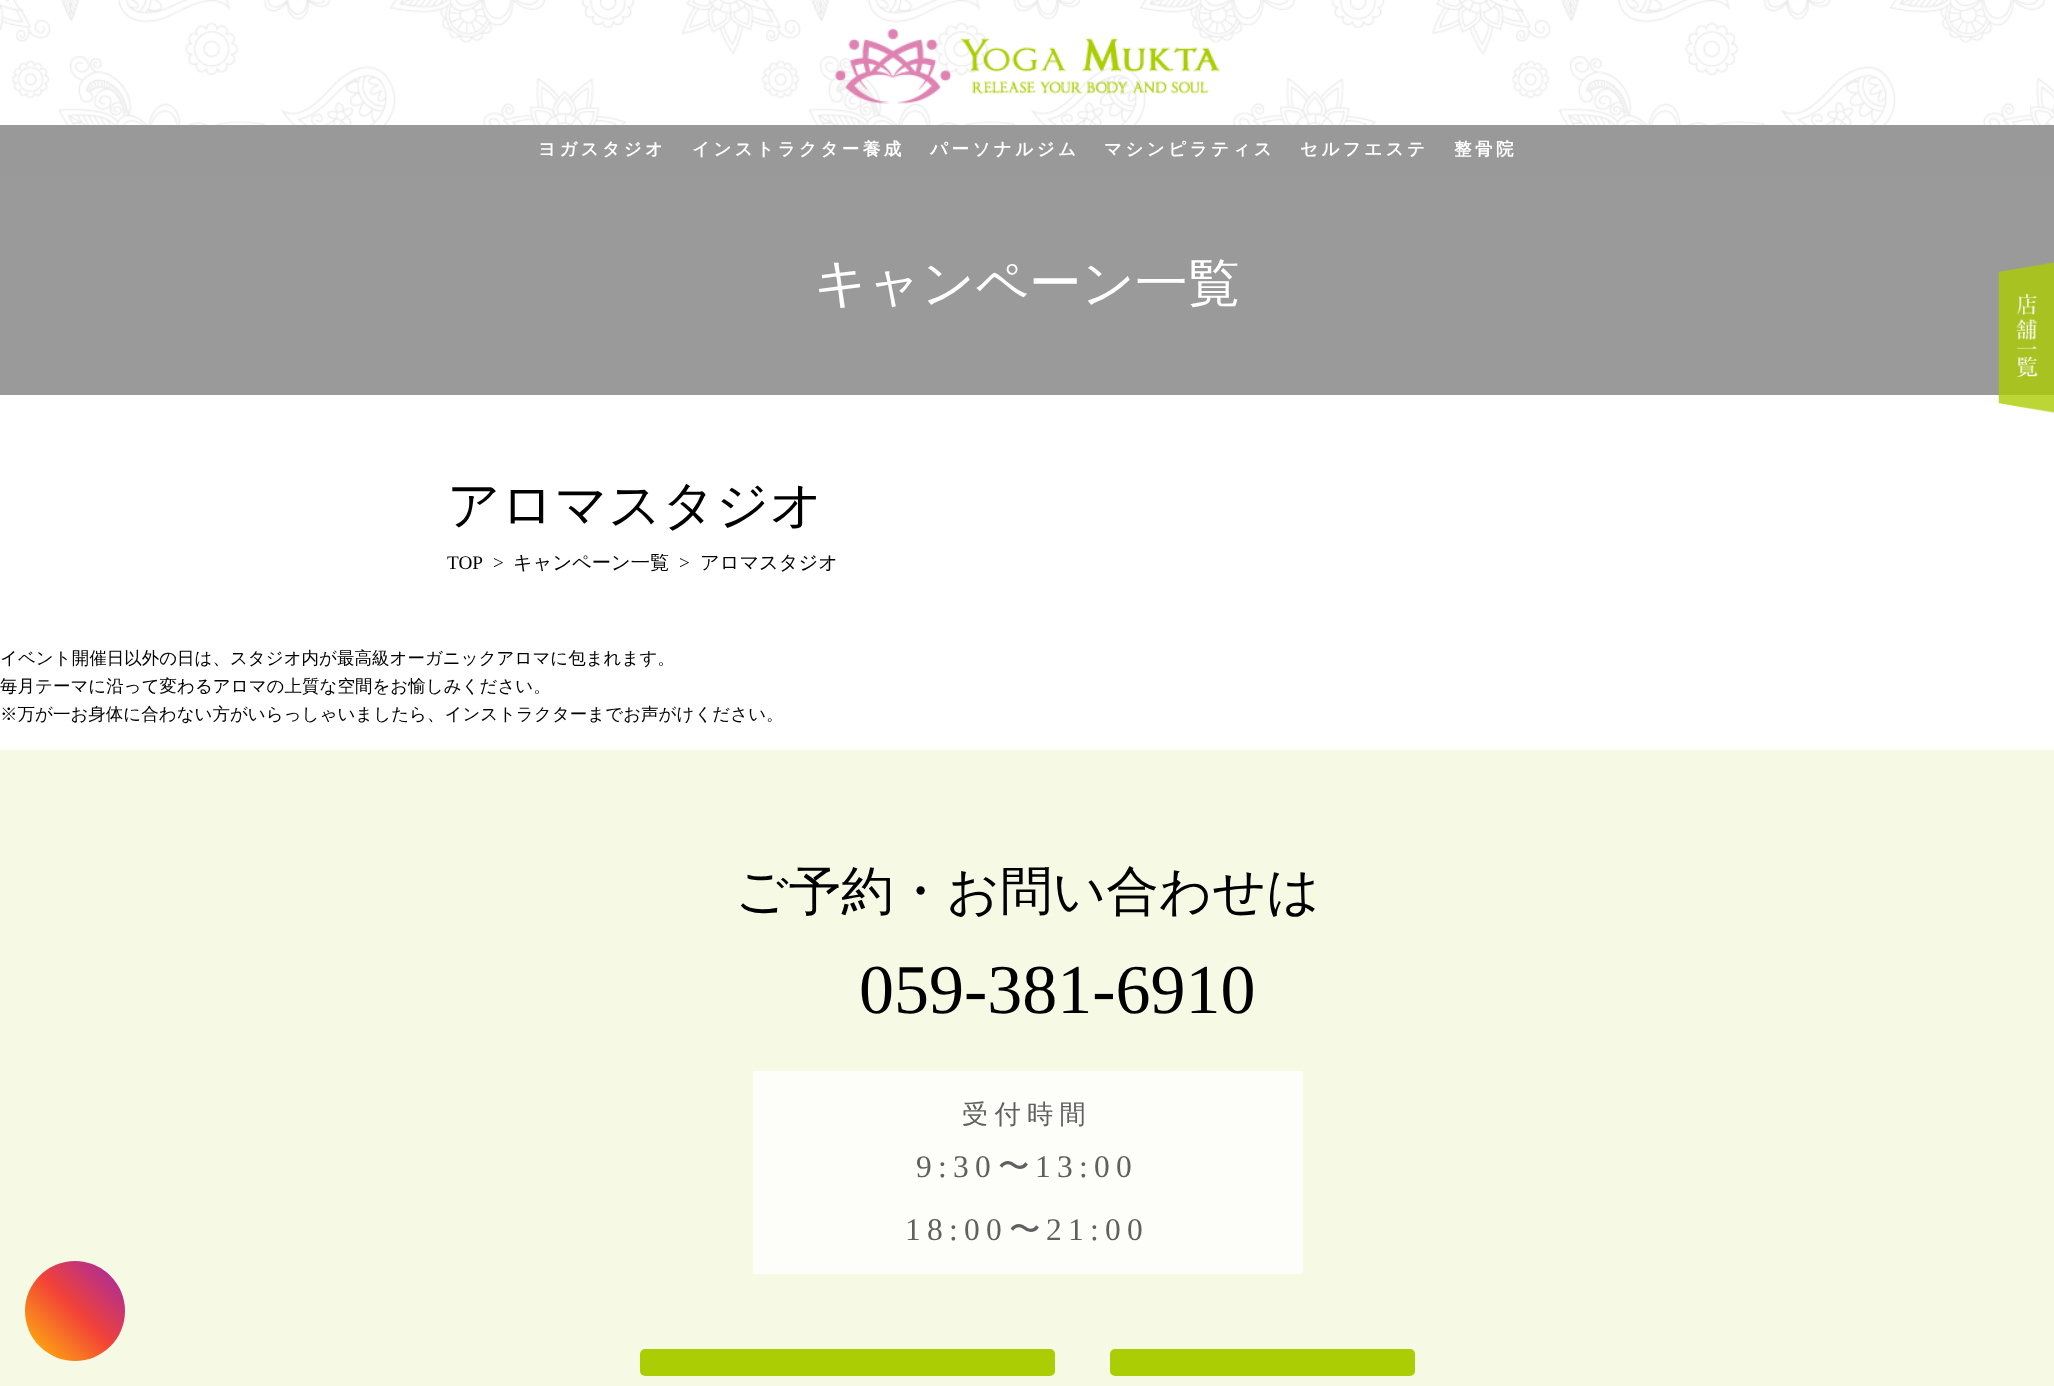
<?xml version="1.0" encoding="UTF-8"?>
<svg xmlns="http://www.w3.org/2000/svg" xmlns:xlink="http://www.w3.org/1999/xlink" width="2054" height="1386">
  <defs>
    <linearGradient id="g1" gradientUnits="userSpaceOnUse" x1="25" y1="1361" x2="125" y2="1261"><stop offset="0" stop-color="#ffc007" /><stop offset="0.5" stop-color="#f34336" /><stop offset="1" stop-color="#9b27af" /></linearGradient>
  </defs>
  <rect width="100%" height="100%" fill="#ffffff" />
  <image x="0" y="0" width="2054" height="125" xlink:href="image1.png" />
  <image x="835" y="28" width="386" height="76" xlink:href="image2.png" />
  <rect y="125" width="2054" height="50" fill="#999999" />
  <rect y="175" width="2054" height="220" fill="#9a9a9a" />
  <image x="1998" y="262" width="56" height="151" xlink:href="image3.png" />
  <rect y="750" width="2054" height="636" fill="#f6fae5" />
  <circle cx="75" cy="1311" r="50" fill="url(#g1)" />
  <rect x="753" y="1071" width="550" height="203" fill="#fdfefa" />
  <rect x="640" y="1349" width="415" height="27" rx="5" fill="#abcd03" />
  <rect x="1110" y="1349" width="305" height="27" rx="5" fill="#abcd03" />
  <text x="538" y="155" style="font-family: WenQuanYi Zen Hei; font-size: 17.5px; font-weight: bold; letter-spacing: 3.5px; fill: #ffffff">ヨガスタジオ</text>
  <text x="692" y="155" style="font-family: WenQuanYi Zen Hei; font-size: 17.5px; font-weight: bold; letter-spacing: 3.5px; fill: #ffffff">インストラクター養成</text>
  <text x="930" y="155" style="font-family: WenQuanYi Zen Hei; font-size: 17.5px; font-weight: bold; letter-spacing: 3.5px; fill: #ffffff">パーソナルジム</text>
  <text x="1104" y="155" style="font-family: WenQuanYi Zen Hei; font-size: 17.5px; font-weight: bold; letter-spacing: 3.5px; fill: #ffffff">マシンピラティス</text>
  <text x="1300" y="155" style="font-family: WenQuanYi Zen Hei; font-size: 17.5px; font-weight: bold; letter-spacing: 3.5px; fill: #ffffff">セルフエステ</text>
  <text x="1454" y="155" style="font-family: WenQuanYi Zen Hei; font-size: 17.5px; font-weight: bold; letter-spacing: 3.5px; fill: #ffffff">整骨院</text>
  <text x="814" y="301" style="font-family: WenQuanYi Zen Hei; font-size: 52.5px; font-weight: 500; fill: #ffffff">キャンペーン一覧</text>
  <text x="447" y="523" style="font-family: WenQuanYi Zen Hei; font-size: 52.5px; font-weight: 500; fill: #000000">アロマスタジオ</text>
  <text x="447" y="569" style="font-family: Liberation Serif; font-size: 19.25px; fill: #000000">TOP</text>
  <text x="493" y="569" style="font-family: Liberation Serif; font-size: 19.25px; fill: #000000">&gt;</text>
  <text x="513" y="569" style="font-family: WenQuanYi Zen Hei; font-size: 19.25px; font-weight: 500; fill: #000000">キャンペーン一覧</text>
  <text x="679" y="569" style="font-family: Liberation Serif; font-size: 19.25px; fill: #000000">&gt;</text>
  <text x="700" y="569" style="font-family: WenQuanYi Zen Hei; font-size: 19.25px; font-weight: 500; fill: #000000">アロマスタジオ</text>
  <text x="0" y="664" style="font-family: WenQuanYi Zen Hei; font-size: 17.5px; font-weight: 500; fill: #000000">イベント開催日以外の日は、スタジオ内が最高級オーガニックアロマに包まれます。</text>
  <text x="0" y="692" style="font-family: WenQuanYi Zen Hei; font-size: 17.5px; font-weight: 500; fill: #000000">毎月テーマに沿って変わるアロマの上質な空間をお愉しみください。</text>
  <text x="0" y="720" style="font-family: WenQuanYi Zen Hei; font-size: 17.5px; font-weight: 500; fill: #000000">※万が一お身体に合わない方がいらっしゃいましたら、インストラクターまでお声がけください。</text>
  <text x="735" y="909" style="font-family: WenQuanYi Zen Hei; font-size: 52.5px; font-weight: 500; fill: #000000">ご予約・お問い合わせは</text>
  <text x="859" y="1013" style="font-family: Liberation Serif; font-size: 70px; fill: #000000">059-381-6910</text>
  <text x="962" y="1123" style="font-family: WenQuanYi Zen Hei; font-size: 26.25px; font-weight: 500; letter-spacing: 6.25px; fill: #606060">受付時間</text>
  <text x="916" y="1177" style="font-family: Liberation Serif; font-size: 31.5px; letter-spacing: 6.25px; fill: #606060">9:30</text>
  <text x="998" y="1177" style="font-family: WenQuanYi Zen Hei; font-size: 31.5px; font-weight: 500; letter-spacing: 6.25px; fill: #606060">〜</text>
  <text x="1035" y="1177" style="font-family: Liberation Serif; font-size: 31.5px; letter-spacing: 6.25px; fill: #606060">13:00</text>
  <text x="905" y="1240" style="font-family: Liberation Serif; font-size: 31.5px; letter-spacing: 6.25px; fill: #606060">18:00</text>
  <text x="1009" y="1240" style="font-family: WenQuanYi Zen Hei; font-size: 31.5px; font-weight: 500; letter-spacing: 6.25px; fill: #606060">〜</text>
  <text x="1046" y="1240" style="font-family: Liberation Serif; font-size: 31.5px; letter-spacing: 6.25px; fill: #606060">21:00</text>
</svg>
